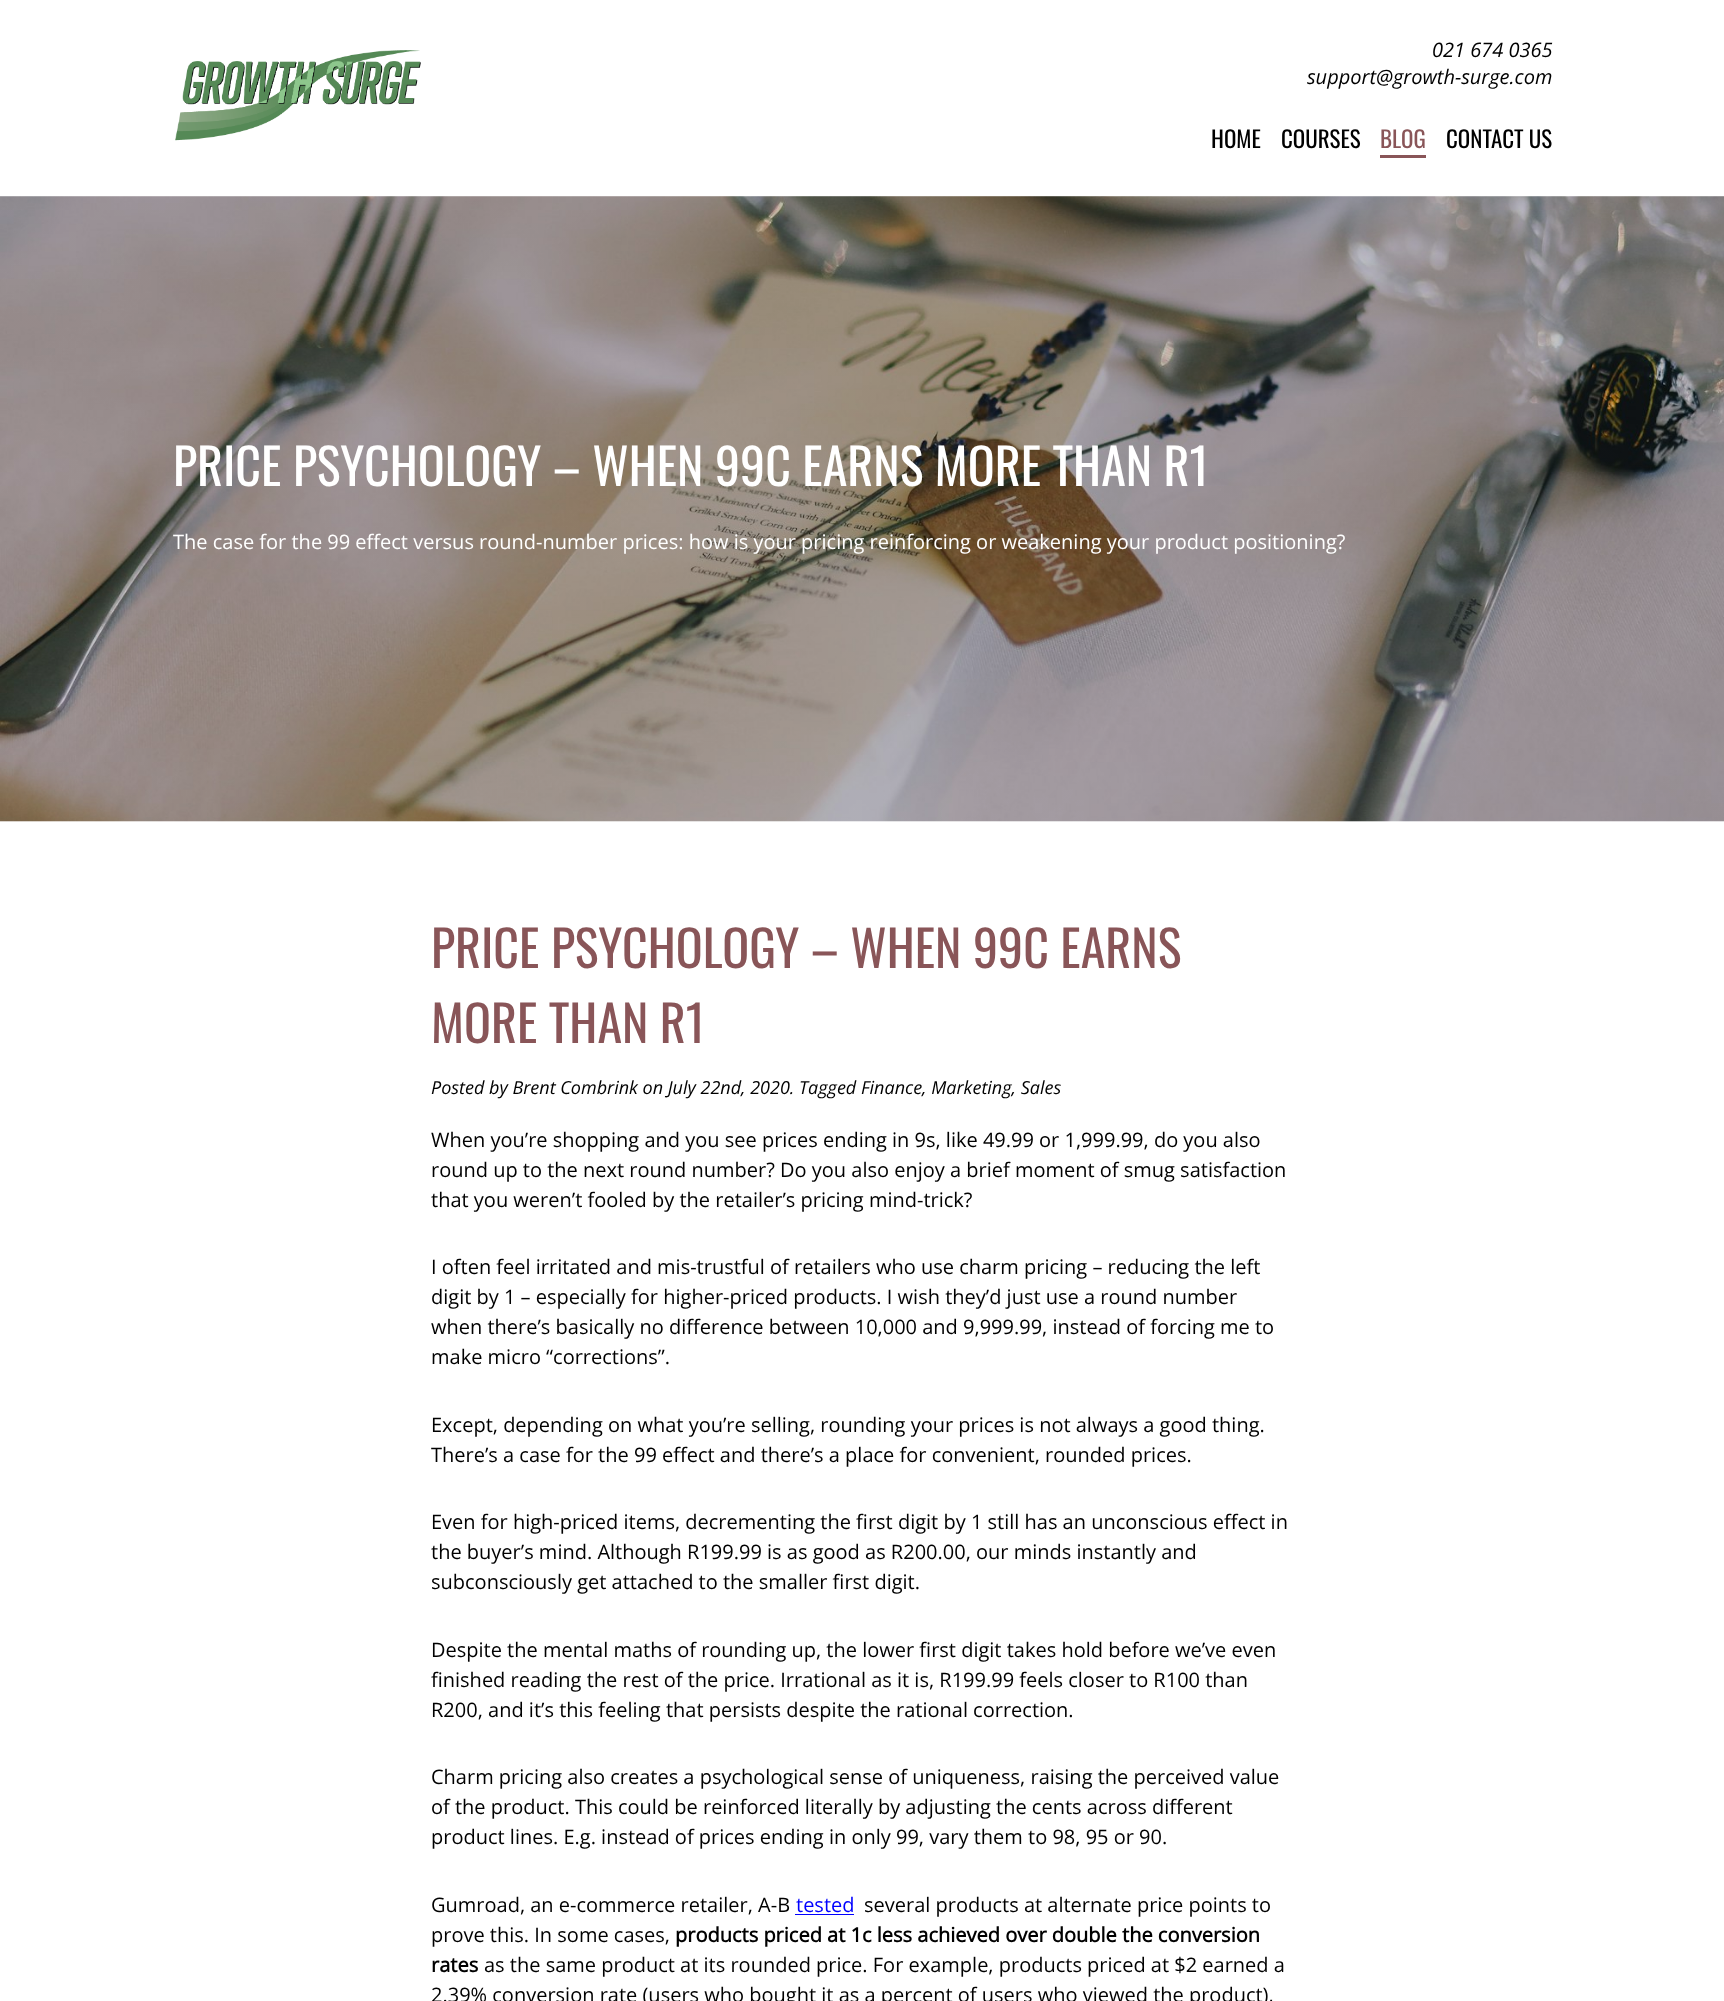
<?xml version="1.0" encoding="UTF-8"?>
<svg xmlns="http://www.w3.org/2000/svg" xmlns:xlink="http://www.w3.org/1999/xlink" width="1724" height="2001">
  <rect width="100%" height="100%" fill="#ffffff" />
  <image x="175" y="50" width="246" height="91" xlink:href="image1.png" />
  <rect x="1380" y="155" width="46" height="3" fill="#895558" />
  <image x="0" y="196" width="1724" height="626" xlink:href="image2.png" />
  <rect x="795" y="1914" width="59" height="1" fill="#0000ff" />
  <text x="1432" y="57" style="font-family: Open Sans; font-size: 20px; font-style: italic; fill: #000000">021 674 0365</text>
  <text x="1307" y="84" style="font-family: Open Sans; font-size: 20px; font-style: italic; fill: #000000">support@growth-surge.com</text>
  <text x="1211" y="148" style="font-family: Oswald; font-size: 23px; fill: #000000">HOME</text>
  <text x="1281" y="148" style="font-family: Oswald; font-size: 23px; fill: #000000">COURSES</text>
  <text x="1380" y="148" style="font-family: Oswald; font-size: 23px; fill: #895558">BLOG</text>
  <text x="1446" y="148" style="font-family: Oswald; font-size: 23px; fill: #000000">CONTACT US</text>
  <text x="173" y="486" style="font-family: Oswald; font-size: 50px; fill: #ffffff">PRICE PSYCHOLOGY – WHEN 99C EARNS MORE THAN R1</text>
  <text x="173" y="549" style="font-family: Open Sans; font-size: 20px; fill: #ffffff">The case for the 99 effect versus round-number prices: how is your pricing reinforcing or weakening your product positioning?</text>
  <text x="431" y="968" style="font-family: Oswald; font-size: 50px; fill: #895558">PRICE PSYCHOLOGY – WHEN 99C EARNS</text>
  <text x="431" y="1043" style="font-family: Oswald; font-size: 50px; fill: #895558">MORE THAN R1</text>
  <text x="431" y="1094" style="font-family: Open Sans; font-size: 18px; font-style: italic; fill: #000000">Posted by Brent Combrink on July 22nd, 2020. Tagged Finance, Marketing, Sales</text>
  <text x="431" y="1147" style="font-family: Open Sans; font-size: 20px; fill: #000000">When you’re shopping and you see prices ending in 9s, like 49.99 or 1,999.99, do you also</text>
  <text x="431" y="1177" style="font-family: Open Sans; font-size: 20px; fill: #000000">round up to the next round number? Do you also enjoy a brief moment of smug satisfaction</text>
  <text x="431" y="1207" style="font-family: Open Sans; font-size: 20px; fill: #000000">that you weren’t fooled by the retailer’s pricing mind-trick?</text>
  <text x="431" y="1274" style="font-family: Open Sans; font-size: 20px; fill: #000000">I often feel irritated and mis-trustful of retailers who use charm pricing – reducing the left</text>
  <text x="431" y="1304" style="font-family: Open Sans; font-size: 20px; fill: #000000">digit by 1 – especially for higher-priced products. I wish they’d just use a round number</text>
  <text x="431" y="1334" style="font-family: Open Sans; font-size: 20px; fill: #000000">when there’s basically no difference between 10,000 and 9,999.99, instead of forcing me to</text>
  <text x="431" y="1364" style="font-family: Open Sans; font-size: 20px; fill: #000000">make micro “corrections”.</text>
  <text x="431" y="1432" style="font-family: Open Sans; font-size: 20px; fill: #000000">Except, depending on what you’re selling, rounding your prices is not always a good thing.</text>
  <text x="431" y="1462" style="font-family: Open Sans; font-size: 20px; fill: #000000">There’s a case for the 99 effect and there’s a place for convenient, rounded prices.</text>
  <text x="431" y="1529" style="font-family: Open Sans; font-size: 20px; fill: #000000">Even for high-priced items, decrementing the first digit by 1 still has an unconscious effect in</text>
  <text x="431" y="1559" style="font-family: Open Sans; font-size: 20px; fill: #000000">the buyer’s mind. Although R199.99 is as good as R200.00, our minds instantly and</text>
  <text x="431" y="1589" style="font-family: Open Sans; font-size: 20px; fill: #000000">subconsciously get attached to the smaller first digit.</text>
  <text x="431" y="1657" style="font-family: Open Sans; font-size: 20px; fill: #000000">Despite the mental maths of rounding up, the lower first digit takes hold before we’ve even</text>
  <text x="431" y="1687" style="font-family: Open Sans; font-size: 20px; fill: #000000">finished reading the rest of the price. Irrational as it is, R199.99 feels closer to R100 than</text>
  <text x="431" y="1717" style="font-family: Open Sans; font-size: 20px; fill: #000000">R200, and it’s this feeling that persists despite the rational correction.</text>
  <text x="431" y="1784" style="font-family: Open Sans; font-size: 20px; fill: #000000">Charm pricing also creates a psychological sense of uniqueness, raising the perceived value</text>
  <text x="431" y="1814" style="font-family: Open Sans; font-size: 20px; fill: #000000">of the product. This could be reinforced literally by adjusting the cents across different</text>
  <text x="431" y="1844" style="font-family: Open Sans; font-size: 20px; fill: #000000">product lines. E.g. instead of prices ending in only 99, vary them to 98, 95 or 90.</text>
  <text x="431" y="1912" style="font-family: Open Sans; font-size: 20px; fill: #000000">Gumroad, an e-commerce retailer, A-B</text>
  <text x="796" y="1912" style="font-family: Open Sans; font-size: 20px; fill: #0000ff">tested</text>
  <text x="864" y="1912" style="font-family: Open Sans; font-size: 20px; fill: #000000">several products at alternate price points to</text>
  <text x="431" y="1942" style="font-family: Open Sans; font-size: 20px; fill: #000000">prove this. In some cases,</text>
  <text x="675" y="1942" style="font-family: Open Sans; font-size: 20px; font-weight: bold; fill: #000000">products priced at 1c less achieved over double the conversion</text>
  <text x="431" y="1972" style="font-family: Open Sans; font-size: 20px; font-weight: bold; fill: #000000">rates</text>
  <text x="484" y="1972" style="font-family: Open Sans; font-size: 20px; fill: #000000">as the same product at its rounded price. For example, products priced at $2 earned a</text>
  <text x="431" y="2002" style="font-family: Open Sans; font-size: 20px; fill: #000000">2.39% conversion rate (users who bought it as a percent of users who viewed the product),</text>
</svg>
